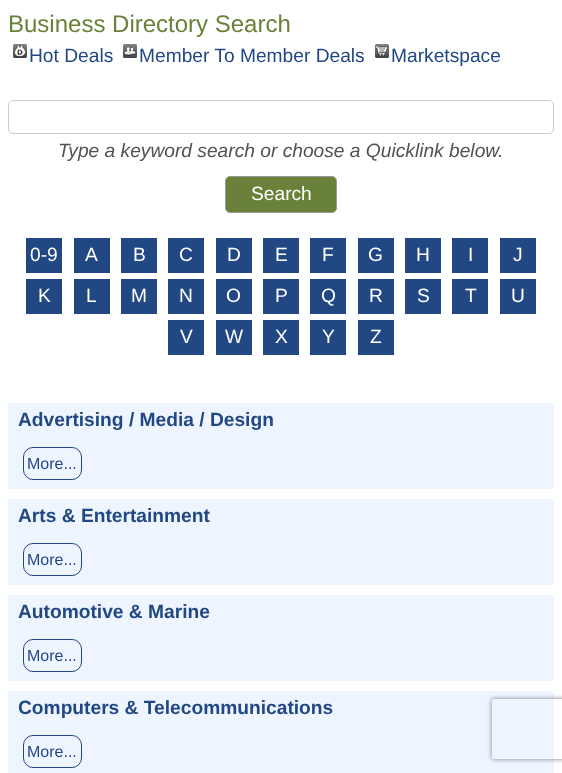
<?xml version="1.0" encoding="UTF-8"?>
<svg xmlns="http://www.w3.org/2000/svg" xmlns:xlink="http://www.w3.org/1999/xlink" width="562" height="773">
  <defs>
    <clipPath id="clip1"><path d="M 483 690 h 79 v 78 h -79 z m 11 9 h 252 c 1 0 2 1 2 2 v 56 c 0 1 -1 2 -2 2 h -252 c -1 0 -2 -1 -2 -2 v -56 c 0 -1 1 -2 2 -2 z" clip-rule="evenodd" /></clipPath>
  </defs>
  <rect width="100%" height="100%" fill="#ffffff" />
  <image x="13" y="44" width="14" height="14" xlink:href="image1.png" />
  <image x="123" y="44" width="14" height="14" xlink:href="image2.png" />
  <image x="375" y="44" width="14" height="14" xlink:href="image3.png" />
  <rect x="8.5" y="100.5" width="545" height="33" rx="4.5" fill="none" stroke="#cccccc" />
  <rect x="225.5" y="176.5" width="111" height="36" rx="4.5" fill="#698138" stroke="#999999" />
  <rect x="26" y="238" width="36" height="35" fill="#224884" />
  <rect x="74" y="238" width="36" height="35" fill="#224884" />
  <rect x="121" y="238" width="36" height="35" fill="#224884" />
  <rect x="168" y="238" width="36" height="35" fill="#224884" />
  <rect x="216" y="238" width="36" height="35" fill="#224884" />
  <rect x="263" y="238" width="36" height="35" fill="#224884" />
  <rect x="310" y="238" width="36" height="35" fill="#224884" />
  <rect x="358" y="238" width="36" height="35" fill="#224884" />
  <rect x="405" y="238" width="36" height="35" fill="#224884" />
  <rect x="452" y="238" width="36" height="35" fill="#224884" />
  <rect x="500" y="238" width="36" height="35" fill="#224884" />
  <rect x="26" y="279" width="36" height="35" fill="#224884" />
  <rect x="74" y="279" width="36" height="35" fill="#224884" />
  <rect x="121" y="279" width="36" height="35" fill="#224884" />
  <rect x="168" y="279" width="36" height="35" fill="#224884" />
  <rect x="216" y="279" width="36" height="35" fill="#224884" />
  <rect x="263" y="279" width="36" height="35" fill="#224884" />
  <rect x="310" y="279" width="36" height="35" fill="#224884" />
  <rect x="358" y="279" width="36" height="35" fill="#224884" />
  <rect x="405" y="279" width="36" height="35" fill="#224884" />
  <rect x="452" y="279" width="36" height="35" fill="#224884" />
  <rect x="500" y="279" width="36" height="35" fill="#224884" />
  <rect x="168" y="320" width="36" height="35" fill="#224884" />
  <rect x="216" y="320" width="36" height="35" fill="#224884" />
  <rect x="263" y="320" width="36" height="35" fill="#224884" />
  <rect x="310" y="320" width="36" height="35" fill="#224884" />
  <rect x="358" y="320" width="36" height="35" fill="#224884" />
  <rect x="8" y="403" width="546" height="86" fill="#eef5ff" />
  <rect x="23.5" y="447.5" width="58" height="32" rx="9.5" fill="none" stroke="#224884" />
  <rect x="8" y="499" width="546" height="86" fill="#eef5ff" />
  <rect x="23.5" y="543.5" width="58" height="32" rx="9.5" fill="none" stroke="#224884" />
  <rect x="8" y="595" width="546" height="86" fill="#eef5ff" />
  <rect x="23.5" y="639.5" width="58" height="32" rx="9.5" fill="none" stroke="#224884" />
  <rect x="8" y="691" width="546" height="82" fill="#eef5ff" />
  <rect x="23.5" y="735.5" width="58" height="32" rx="9.5" fill="none" stroke="#224884" />
  <g clip-path="url(#clip1)">
    <rect x="492" y="699" width="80" height="60" rx="2" fill="#808080" filter="blur(2.5px)" />
  </g>
  <text x="8" y="32" style="font-family: Liberation Sans; font-size: 24px; fill: #698138">Business Directory Search</text>
  <text x="29" y="62" style="font-family: Liberation Sans; font-size: 19.2px; fill: #224884">Hot Deals</text>
  <text x="139" y="62" style="font-family: Liberation Sans; font-size: 19.2px; fill: #224884">Member To Member Deals</text>
  <text x="391" y="62" style="font-family: Liberation Sans; font-size: 19.2px; fill: #224884">Marketspace</text>
  <text x="58" y="157" style="font-family: Liberation Sans; font-size: 19.2px; font-style: italic; fill: #525252">Type a keyword search or choose a Quicklink below.</text>
  <text x="251" y="200" style="font-family: Liberation Sans; font-size: 19.2px; fill: #ffffff">Search</text>
  <text x="30" y="261" style="font-family: Liberation Sans; font-size: 19.2px; fill: #ffffff">0-9</text>
  <text x="85" y="261" style="font-family: Liberation Sans; font-size: 19.2px; fill: #ffffff">A</text>
  <text x="133" y="261" style="font-family: Liberation Sans; font-size: 19.2px; fill: #ffffff">B</text>
  <text x="179" y="261" style="font-family: Liberation Sans; font-size: 19.2px; fill: #ffffff">C</text>
  <text x="227" y="261" style="font-family: Liberation Sans; font-size: 19.2px; fill: #ffffff">D</text>
  <text x="275" y="261" style="font-family: Liberation Sans; font-size: 19.2px; fill: #ffffff">E</text>
  <text x="322" y="261" style="font-family: Liberation Sans; font-size: 19.2px; fill: #ffffff">F</text>
  <text x="368" y="261" style="font-family: Liberation Sans; font-size: 19.2px; fill: #ffffff">G</text>
  <text x="416" y="261" style="font-family: Liberation Sans; font-size: 19.2px; fill: #ffffff">H</text>
  <text x="468" y="261" style="font-family: Liberation Sans; font-size: 19.2px; fill: #ffffff">I</text>
  <text x="513" y="261" style="font-family: Liberation Sans; font-size: 19.2px; fill: #ffffff">J</text>
  <text x="38" y="302" style="font-family: Liberation Sans; font-size: 19.2px; fill: #ffffff">K</text>
  <text x="86" y="302" style="font-family: Liberation Sans; font-size: 19.2px; fill: #ffffff">L</text>
  <text x="131" y="302" style="font-family: Liberation Sans; font-size: 19.2px; fill: #ffffff">M</text>
  <text x="179" y="302" style="font-family: Liberation Sans; font-size: 19.2px; fill: #ffffff">N</text>
  <text x="226" y="302" style="font-family: Liberation Sans; font-size: 19.2px; fill: #ffffff">O</text>
  <text x="275" y="302" style="font-family: Liberation Sans; font-size: 19.2px; fill: #ffffff">P</text>
  <text x="321" y="302" style="font-family: Liberation Sans; font-size: 19.2px; fill: #ffffff">Q</text>
  <text x="369" y="302" style="font-family: Liberation Sans; font-size: 19.2px; fill: #ffffff">R</text>
  <text x="417" y="302" style="font-family: Liberation Sans; font-size: 19.2px; fill: #ffffff">S</text>
  <text x="465" y="302" style="font-family: Liberation Sans; font-size: 19.2px; fill: #ffffff">T</text>
  <text x="511" y="302" style="font-family: Liberation Sans; font-size: 19.2px; fill: #ffffff">U</text>
  <text x="180" y="343" style="font-family: Liberation Sans; font-size: 19.2px; fill: #ffffff">V</text>
  <text x="225" y="343" style="font-family: Liberation Sans; font-size: 19.2px; fill: #ffffff">W</text>
  <text x="275" y="343" style="font-family: Liberation Sans; font-size: 19.2px; fill: #ffffff">X</text>
  <text x="322" y="343" style="font-family: Liberation Sans; font-size: 19.2px; fill: #ffffff">Y</text>
  <text x="370" y="343" style="font-family: Liberation Sans; font-size: 19.2px; fill: #ffffff">Z</text>
  <text x="18" y="426" style="font-family: Liberation Sans; font-size: 19.2px; font-weight: bold; fill: #224884">Advertising / Media / Design</text>
  <text x="27" y="469" style="font-family: Liberation Sans; font-size: 16px; fill: #224884">More...</text>
  <text x="18" y="522" style="font-family: Liberation Sans; font-size: 19.2px; font-weight: bold; fill: #224884">Arts &amp; Entertainment</text>
  <text x="27" y="565" style="font-family: Liberation Sans; font-size: 16px; fill: #224884">More...</text>
  <text x="18" y="618" style="font-family: Liberation Sans; font-size: 19.2px; font-weight: bold; fill: #224884">Automotive &amp; Marine</text>
  <text x="27" y="661" style="font-family: Liberation Sans; font-size: 16px; fill: #224884">More...</text>
  <text x="18" y="714" style="font-family: Liberation Sans; font-size: 19.2px; font-weight: bold; fill: #224884">Computers &amp; Telecommunications</text>
  <text x="27" y="757" style="font-family: Liberation Sans; font-size: 16px; fill: #224884">More...</text>
</svg>
